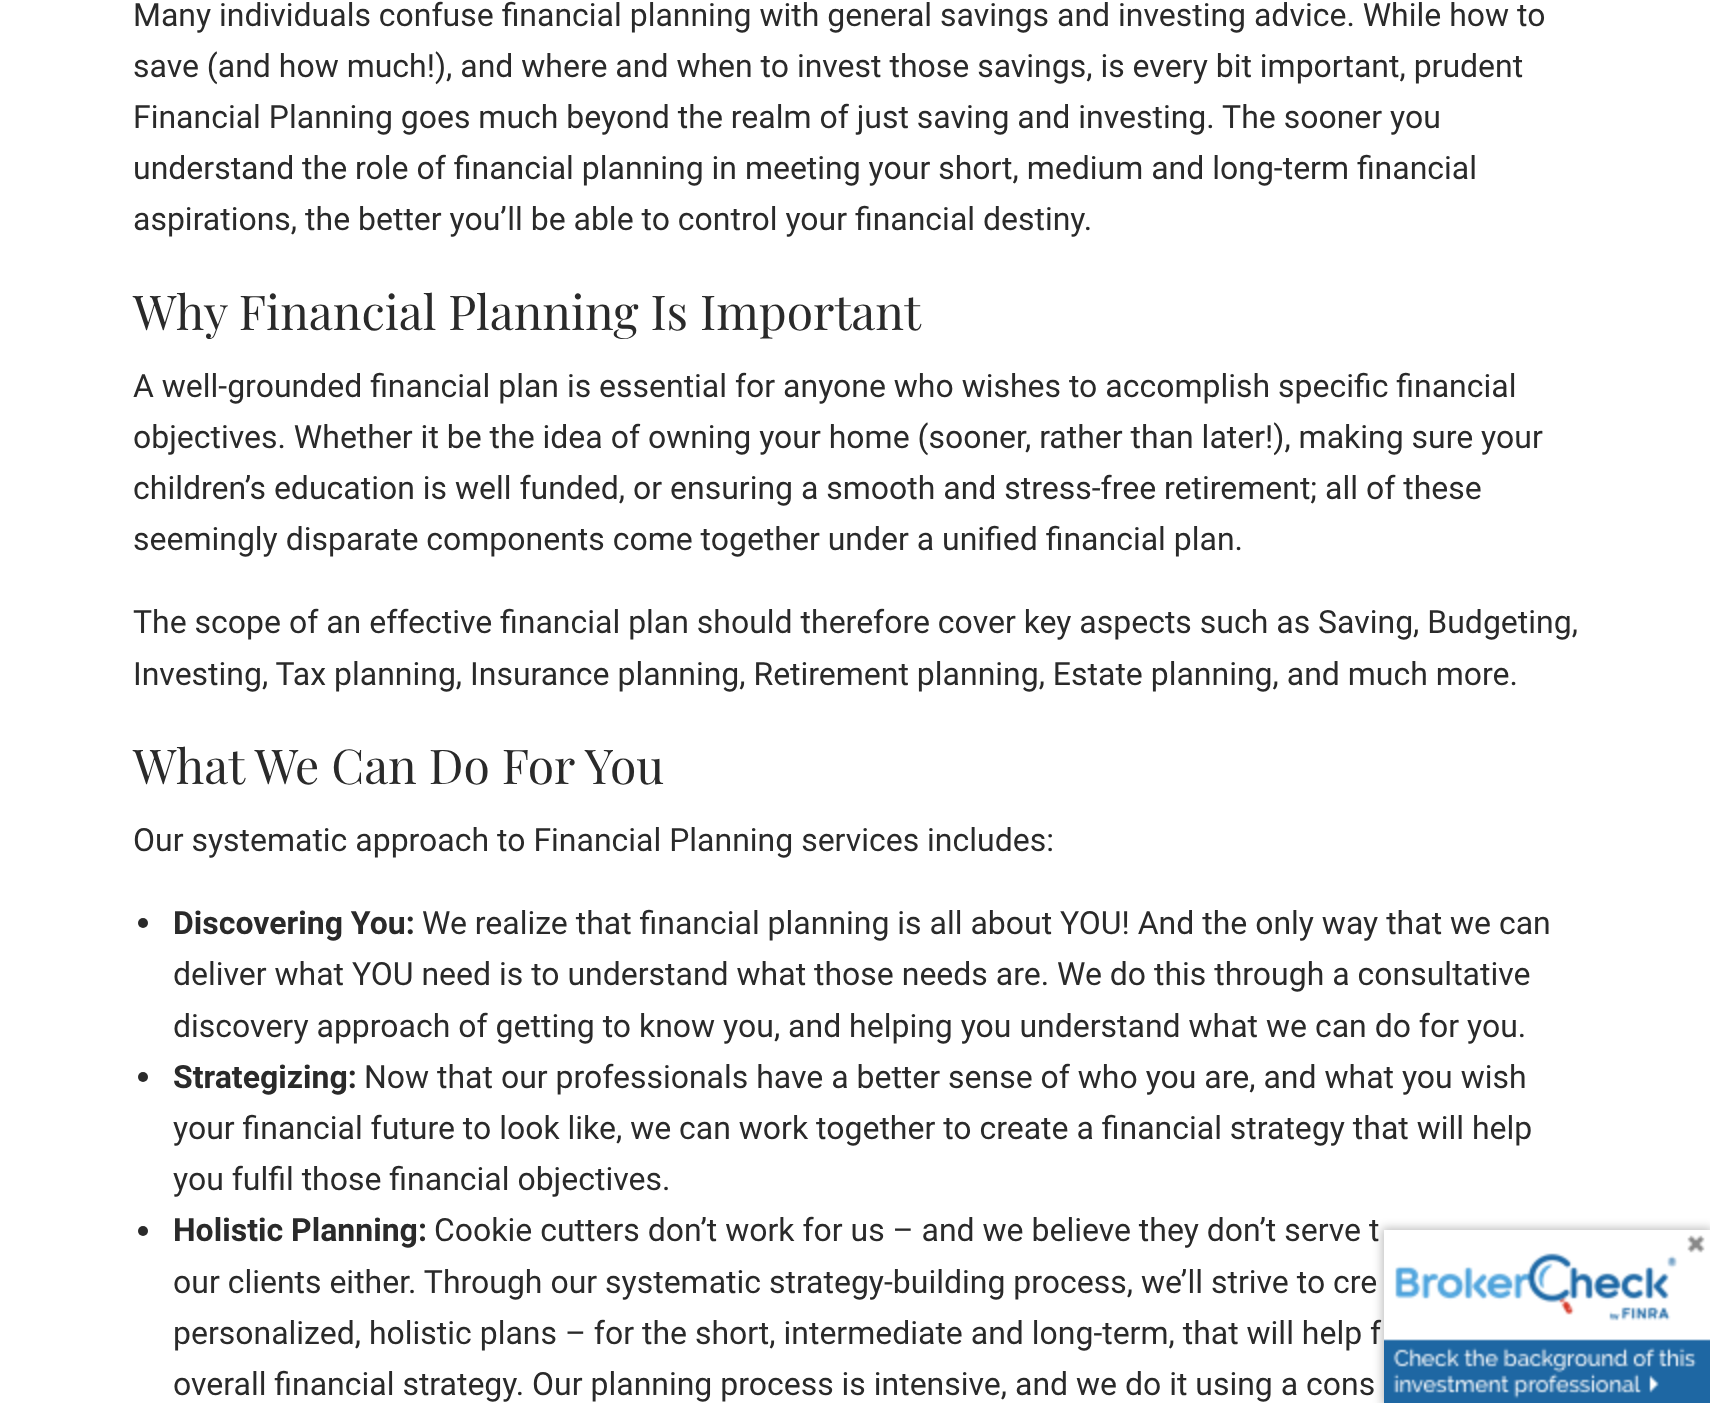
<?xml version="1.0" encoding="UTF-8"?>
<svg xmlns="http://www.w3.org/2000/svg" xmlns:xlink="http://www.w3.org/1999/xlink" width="1710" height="1403">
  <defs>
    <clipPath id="clip1"><path d="M 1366 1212 h 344 v 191 h -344 z m 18 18 h 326 v 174 h -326 z" clip-rule="evenodd" /></clipPath>
  </defs>
  <rect width="100%" height="100%" fill="#ffffff" />
  <circle cx="143" cy="923" r="5" fill="#2a2a2a" />
  <circle cx="143" cy="1077" r="5" fill="#2a2a2a" />
  <circle cx="143" cy="1231" r="5" fill="#2a2a2a" />
  <g clip-path="url(#clip1)">
    <rect x="1382" y="1228" width="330" height="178" fill="#000000" fill-opacity="0.25" filter="blur(5px)" />
  </g>
  <image x="1384" y="1235" width="326" height="168" xlink:href="image1.png" />
  <text x="133" y="26" style="font-family: Roboto; font-size: 32px; fill: #2a2a2a">Many individuals confuse financial planning with general savings and investing advice. While how to</text>
  <text x="133" y="77" style="font-family: Roboto; font-size: 32px; fill: #2a2a2a">save (and how much!), and where and when to invest those savings, is every bit important, prudent</text>
  <text x="133" y="128" style="font-family: Roboto; font-size: 32px; fill: #2a2a2a">Financial Planning goes much beyond the realm of just saving and investing. The sooner you</text>
  <text x="133" y="179" style="font-family: Roboto; font-size: 32px; fill: #2a2a2a">understand the role of financial planning in meeting your short, medium and long-term financial</text>
  <text x="133" y="230" style="font-family: Roboto; font-size: 32px; fill: #2a2a2a">aspirations, the better you’ll be able to control your financial destiny.</text>
  <text x="133" y="330" style="font-family: Playfair Display; font-size: 48px; fill: #2a2a2a">Why Financial Planning Is Important</text>
  <text x="133" y="397" style="font-family: Roboto; font-size: 32px; fill: #2a2a2a">A well-grounded financial plan is essential for anyone who wishes to accomplish specific financial</text>
  <text x="133" y="448" style="font-family: Roboto; font-size: 32px; fill: #2a2a2a">objectives. Whether it be the idea of owning your home (sooner, rather than later!), making sure your</text>
  <text x="133" y="499" style="font-family: Roboto; font-size: 32px; fill: #2a2a2a">children’s education is well funded, or ensuring a smooth and stress-free retirement; all of these</text>
  <text x="133" y="550" style="font-family: Roboto; font-size: 32px; fill: #2a2a2a">seemingly disparate components come together under a unified financial plan.</text>
  <text x="133" y="633" style="font-family: Roboto; font-size: 32px; fill: #2a2a2a">The scope of an effective financial plan should therefore cover key aspects such as Saving, Budgeting,</text>
  <text x="133" y="685" style="font-family: Roboto; font-size: 32px; fill: #2a2a2a">Investing, Tax planning, Insurance planning, Retirement planning, Estate planning, and much more.</text>
  <text x="133" y="784" style="font-family: Playfair Display; font-size: 48px; fill: #2a2a2a">What We Can Do For You</text>
  <text x="133" y="851" style="font-family: Roboto; font-size: 32px; fill: #2a2a2a">Our systematic approach to Financial Planning services includes:</text>
  <text x="173" y="934" style="font-family: Roboto; font-size: 32px; font-weight: bold; fill: #2a2a2a">Discovering You:</text>
  <text x="422" y="934" style="font-family: Roboto; font-size: 32px; fill: #2a2a2a">We realize that financial planning is all about YOU! And the only way that we can</text>
  <text x="173" y="985" style="font-family: Roboto; font-size: 32px; fill: #2a2a2a">deliver what YOU need is to understand what those needs are. We do this through a consultative</text>
  <text x="173" y="1037" style="font-family: Roboto; font-size: 32px; fill: #2a2a2a">discovery approach of getting to know you, and helping you understand what we can do for you.</text>
  <text x="173" y="1088" style="font-family: Roboto; font-size: 32px; font-weight: bold; fill: #2a2a2a">Strategizing:</text>
  <text x="364" y="1088" style="font-family: Roboto; font-size: 32px; fill: #2a2a2a">Now that our professionals have a better sense of who you are, and what you wish</text>
  <text x="173" y="1139" style="font-family: Roboto; font-size: 32px; fill: #2a2a2a">your financial future to look like, we can work together to create a financial strategy that will help</text>
  <text x="173" y="1190" style="font-family: Roboto; font-size: 32px; fill: #2a2a2a">you fulfil those financial objectives.</text>
  <text x="173" y="1241" style="font-family: Roboto; font-size: 32px; font-weight: bold; fill: #2a2a2a">Holistic Planning:</text>
  <text x="434" y="1241" style="font-family: Roboto; font-size: 32px; fill: #2a2a2a">Cookie cutters don’t work for us – and we believe they don’t serve t</text>
  <text x="173" y="1293" style="font-family: Roboto; font-size: 32px; fill: #2a2a2a">our clients either. Through our systematic strategy-building process, we’ll strive to cre</text>
  <text x="173" y="1344" style="font-family: Roboto; font-size: 32px; fill: #2a2a2a">personalized, holistic plans – for the short, intermediate and long-term, that will help f</text>
  <text x="173" y="1395" style="font-family: Roboto; font-size: 32px; fill: #2a2a2a">overall financial strategy. Our planning process is intensive, and we do it using a cons</text>
</svg>
